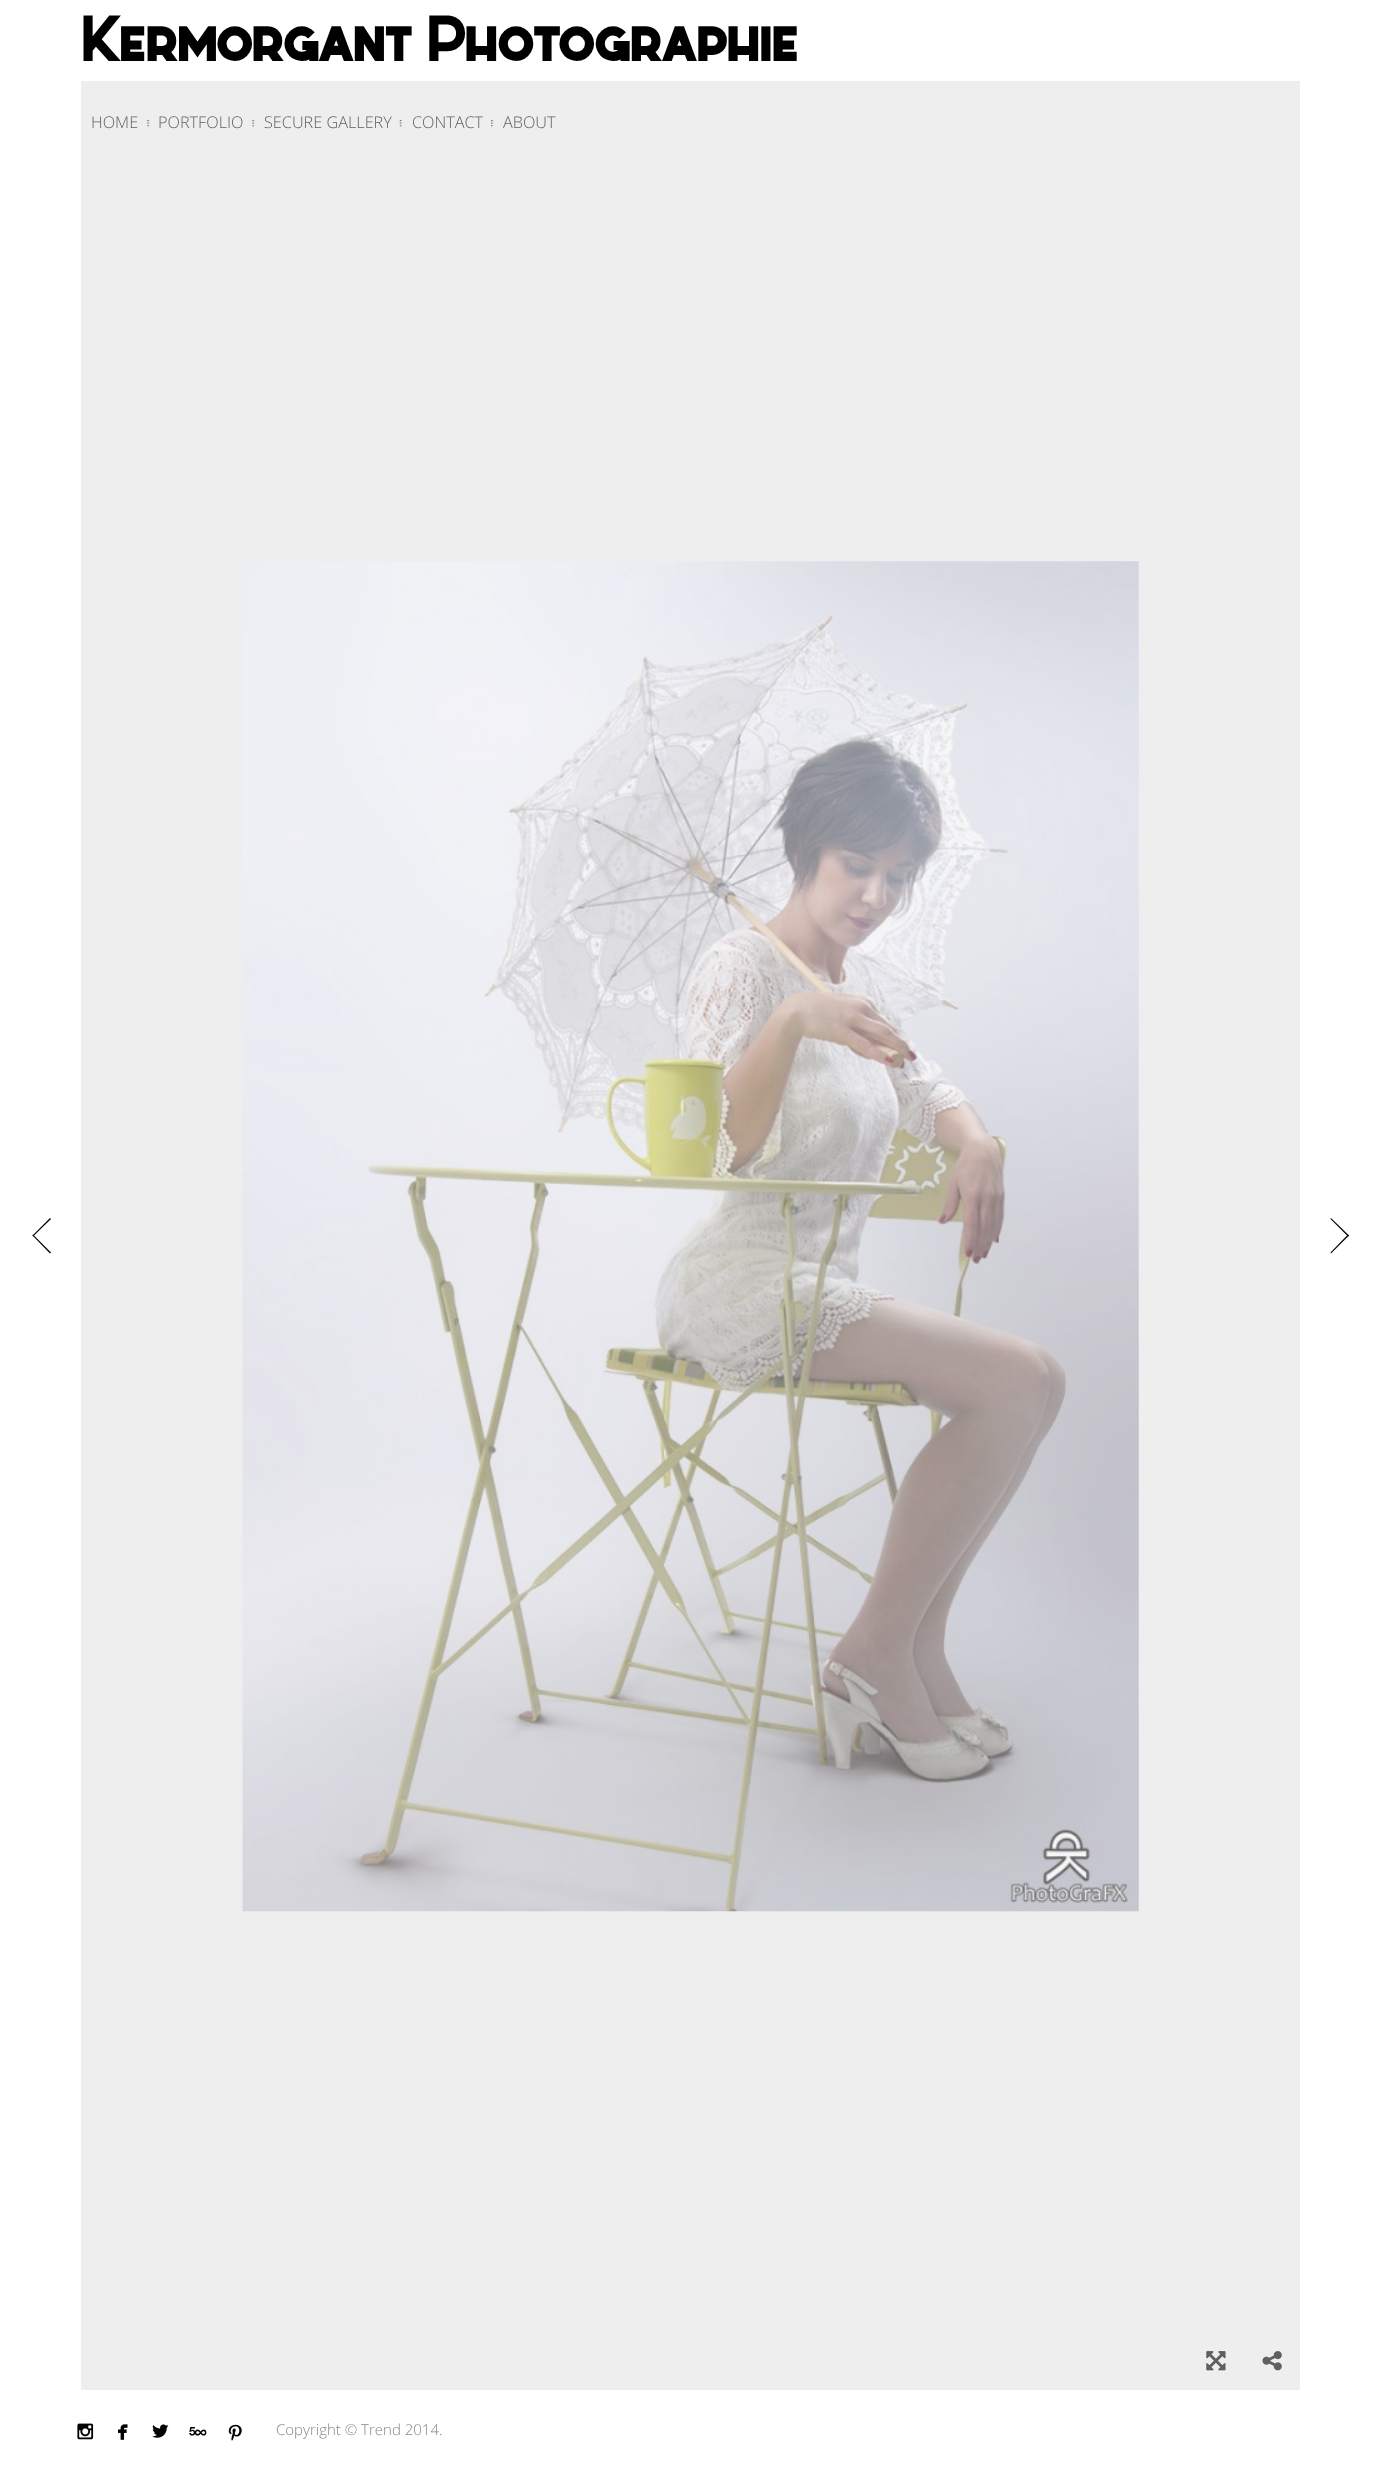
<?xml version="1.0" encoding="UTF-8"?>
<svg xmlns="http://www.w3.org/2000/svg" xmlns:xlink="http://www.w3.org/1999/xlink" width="1381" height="2471">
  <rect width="100%" height="100%" fill="#ffffff" />
  <rect x="81" y="81" width="1219" height="2309" fill="#eeeeee" />
  <image x="147" y="120" width="3" height="7" xlink:href="image1.png" />
  <image x="252" y="120" width="3" height="7" xlink:href="image1.png" />
  <image x="399" y="120" width="4" height="7" xlink:href="image2.png" />
  <image x="491" y="120" width="3" height="7" xlink:href="image3.png" />
  <path d="M 33 1234.5 l 18 18 l -1 1 l -17.5 -18 z" fill="#000000" />
  <path d="M 50 1218 l 1 1 l -18 17.5 l -0.5 -1 z" fill="#000000" />
  <image x="242" y="561" width="897" height="1351" xlink:href="image4.png" />
  <path d="M 1331 1218 l 18 17.5 l -1 1 l -17.5 -17.5 z" fill="#000000" />
  <path d="M 1348 1234.5 l 1 1 l -18 18 l -0.5 -1 z" fill="#000000" />
  <image x="1206" y="2351" width="20" height="20" xlink:href="image5.png" />
  <image x="1262" y="2351" width="20" height="20" xlink:href="image6.png" />
  <image x="77" y="2423" width="17" height="17" xlink:href="image7.png" />
  <image x="118" y="2424" width="10" height="16" xlink:href="image8.png" />
  <image x="152" y="2424" width="17" height="14" xlink:href="image9.png" />
  <image x="189" y="2427" width="18" height="9" xlink:href="image10.png" />
  <image x="228" y="2424" width="14" height="17" xlink:href="image11.png" />
  <text x="81" y="61" style="font-family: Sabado; font-size: 62.5px; font-weight: bold; fill: #000000">Kermorgant Photographie</text>
  <text x="91" y="128" style="font-family: Open Sans; font-size: 16.25px; font-weight: 300; fill: #5f5f5f">HOME</text>
  <text x="158" y="128" style="font-family: Open Sans; font-size: 16.25px; font-weight: 300; fill: #5f5f5f">PORTFOLIO</text>
  <text x="264" y="128" style="font-family: Open Sans; font-size: 16.25px; font-weight: 300; fill: #5f5f5f">SECURE GALLERY</text>
  <text x="412" y="128" style="font-family: Open Sans; font-size: 16.25px; font-weight: 300; fill: #5f5f5f">CONTACT</text>
  <text x="503" y="128" style="font-family: Open Sans; font-size: 16.25px; font-weight: 300; fill: #5f5f5f">ABOUT</text>
  <text x="276" y="2435" style="font-family: Open Sans; font-size: 15px; font-weight: 300; fill: #868686">Copyright © Trend 2014.</text>
</svg>
